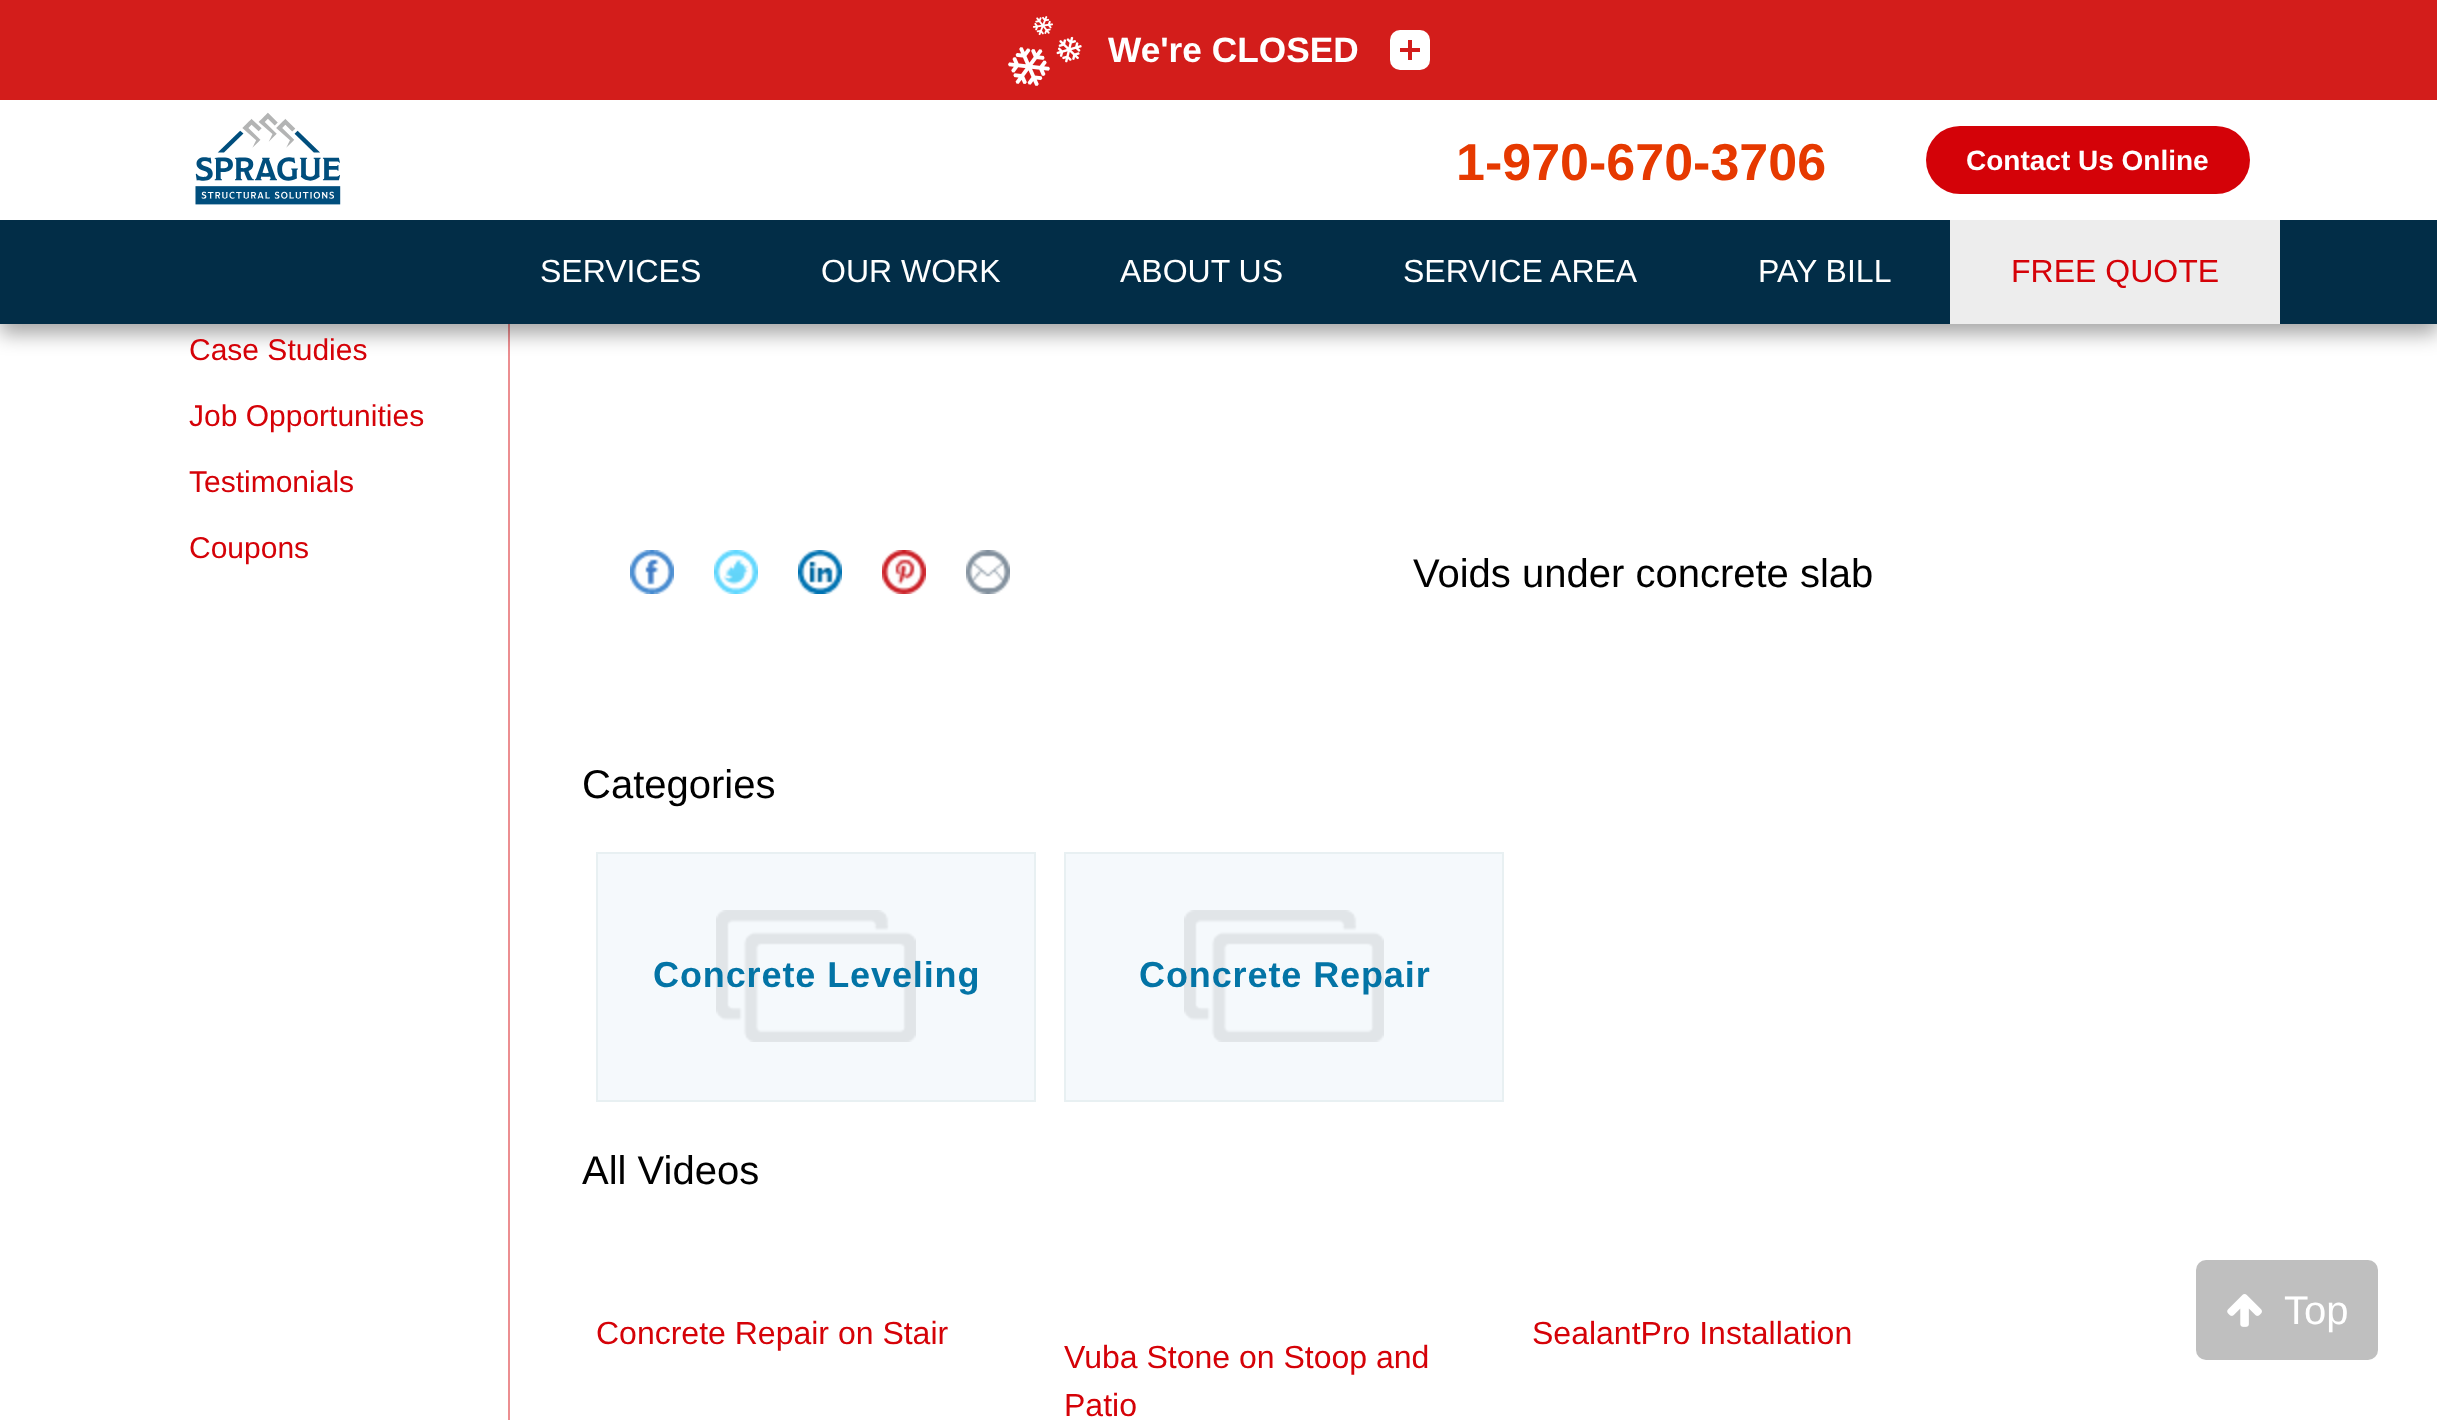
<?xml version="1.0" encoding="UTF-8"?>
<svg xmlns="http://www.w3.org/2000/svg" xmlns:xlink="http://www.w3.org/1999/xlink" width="2437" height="1420">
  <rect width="100%" height="100%" fill="#ffffff" />
  <rect x="508" y="324" width="2" height="1096" fill="#ec8e91" />
  <rect y="10" width="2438" height="324" fill="#000000" fill-opacity="0.35" filter="blur(10px)" />
  <rect width="2437" height="100" fill="#d31d1b" />
  <image x="1008" y="16" width="74" height="70" xlink:href="image1.png" />
  <rect x="1390" y="30" width="40" height="40" rx="10" fill="#ffffff" />
  <rect x="1400" y="48" width="20" height="4" fill="#d31d1b" />
  <rect x="1408" y="40" width="4" height="20" fill="#d31d1b" />
  <rect y="220" width="2437" height="104" fill="#022d47" />
  <rect y="100" width="2437" height="120" fill="#ffffff" />
  <image x="195" y="112" width="146" height="93" xlink:href="image2.png" />
  <rect x="1926" y="126" width="324" height="68" rx="34" fill="#d40208" />
  <rect x="1950" y="220" width="330" height="104" fill="#ededed" />
  <image x="630" y="550" width="44" height="44" xlink:href="image3.png" />
  <image x="714" y="550" width="44" height="44" xlink:href="image4.png" />
  <image x="798" y="550" width="44" height="44" xlink:href="image5.png" />
  <image x="882" y="550" width="44" height="44" xlink:href="image6.png" />
  <image x="966" y="550" width="44" height="44" xlink:href="image7.png" />
  <rect x="597" y="853" width="438" height="248" fill="#f5f9fc" stroke="#e8f0f2" stroke-width="2" />
  <image x="716" y="910" width="200" height="132" xlink:href="image8.png" />
  <rect x="1065" y="853" width="438" height="248" fill="#f5f9fc" stroke="#e8f0f2" stroke-width="2" />
  <image x="1184" y="910" width="200" height="132" xlink:href="image8.png" />
  <rect x="2196" y="1260" width="182" height="100" rx="10" fill="#bfbfbf" />
  <image x="2227" y="1294" width="35" height="33" xlink:href="image9.png" />
  <text x="1108" y="62" style="font-family: Liberation Sans; font-size: 35.25px; font-weight: bold; fill: #ffffff">We're CLOSED</text>
  <text x="1456" y="180" style="font-family: Liberation Sans; font-size: 52px; font-weight: bold; fill: #e63900">1-970-670-3706</text>
  <text x="1966" y="170" style="font-family: Liberation Sans; font-size: 28px; font-weight: bold; fill: #ffffff">Contact Us Online</text>
  <text x="540" y="282" style="font-family: Liberation Sans; font-size: 32px; fill: #ffffff">SERVICES</text>
  <text x="821" y="282" style="font-family: Liberation Sans; font-size: 32px; fill: #ffffff">OUR WORK</text>
  <text x="1120" y="282" style="font-family: Liberation Sans; font-size: 32px; fill: #ffffff">ABOUT US</text>
  <text x="1403" y="282" style="font-family: Liberation Sans; font-size: 32px; fill: #ffffff">SERVICE AREA</text>
  <text x="1758" y="282" style="font-family: Liberation Sans; font-size: 32px; fill: #ffffff">PAY BILL</text>
  <text x="2011" y="282" style="font-family: Liberation Sans; font-size: 32px; fill: #d50208">FREE QUOTE</text>
  <text x="189" y="360" style="font-family: Liberation Sans; font-size: 30px; fill: #d50208">Case Studies</text>
  <text x="189" y="426" style="font-family: Liberation Sans; font-size: 30px; fill: #d50208">Job Opportunities</text>
  <text x="189" y="492" style="font-family: Liberation Sans; font-size: 30px; fill: #d50208">Testimonials</text>
  <text x="189" y="558" style="font-family: Liberation Sans; font-size: 30px; fill: #d50208">Coupons</text>
  <text x="1413" y="587" style="font-family: Liberation Sans; font-size: 40px; fill: #000000">Voids under concrete slab</text>
  <text x="582" y="798" style="font-family: Liberation Sans; font-size: 40px; fill: #000000">Categories</text>
  <text x="653" y="987" style="font-family: Liberation Sans; font-size: 36px; font-weight: bold; letter-spacing: 0.9px; fill: #0374a6">Concrete Leveling</text>
  <text x="1139" y="987" style="font-family: Liberation Sans; font-size: 36px; font-weight: bold; letter-spacing: 0.9px; fill: #0374a6">Concrete Repair</text>
  <text x="582" y="1184" style="font-family: Liberation Sans; font-size: 40px; fill: #000000">All Videos</text>
  <text x="596" y="1344" style="font-family: Liberation Sans; font-size: 32px; fill: #d50208">Concrete Repair on Stair</text>
  <text x="1532" y="1344" style="font-family: Liberation Sans; font-size: 32px; fill: #d50208">SealantPro Installation</text>
  <text x="1064" y="1368" style="font-family: Liberation Sans; font-size: 32px; fill: #d50208">Vuba Stone on Stoop and</text>
  <text x="1064" y="1416" style="font-family: Liberation Sans; font-size: 32px; fill: #d50208">Patio</text>
  <text x="2284" y="1324" style="font-family: Liberation Sans; font-size: 40px; fill: #ffffff">Top</text>
</svg>
